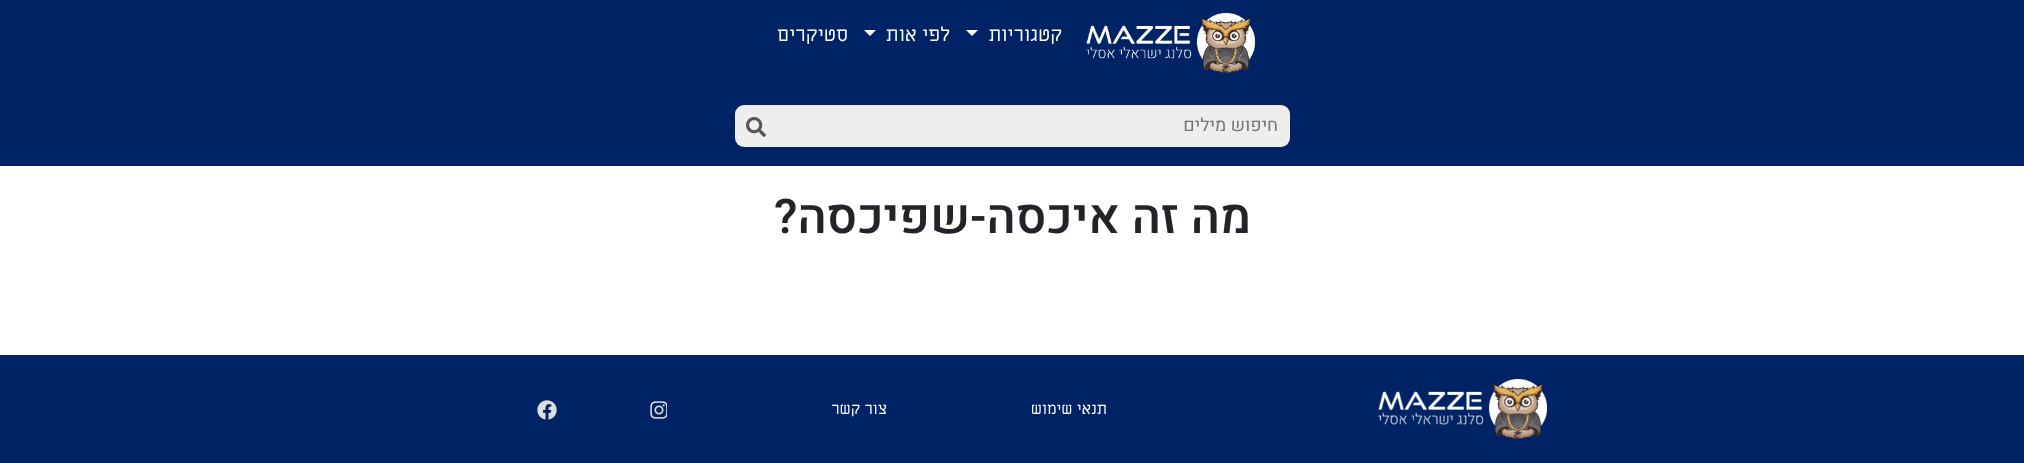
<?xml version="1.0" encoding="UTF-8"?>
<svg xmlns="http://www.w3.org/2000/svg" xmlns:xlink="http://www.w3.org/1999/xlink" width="2024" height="463">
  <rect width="100%" height="100%" fill="#ffffff" />
  <rect width="2024" height="166" fill="#002365" />
  <image x="1086" y="13" width="169" height="60" xlink:href="image1.png" />
  <path d="M 966 30 h 12 l -6 6 z" fill="#ffffff" />
  <path d="M 864 30 h 12 l -6 6 z" fill="#ffffff" />
  <rect x="735" y="105" width="555" height="42" rx="9" fill="#eeeeee" />
  <image x="746" y="117" width="20" height="20" xlink:href="image2.png" />
  <rect y="355" width="2024" height="108" fill="#002365" />
  <image x="1378" y="379" width="169" height="60" xlink:href="image3.png" />
  <image x="650" y="401" width="17" height="18" xlink:href="image4.png" />
  <image x="537" y="400" width="20" height="20" xlink:href="image5.png" />
  <text x="1062" y="41" style="font-family: Miriam Libre; font-size: 20px; direction: rtl; fill: #ffffff">קטגוריות</text>
  <text x="950" y="41" style="font-family: Miriam Libre; font-size: 20px; direction: rtl; fill: #ffffff">לפי אות</text>
  <text x="848" y="41" style="font-family: Miriam Libre; font-size: 20px; direction: rtl; fill: #ffffff">סטיקרים</text>
  <text x="1278" y="131" style="font-family: Heebo; font-size: 18px; direction: rtl; fill: #757575">חיפוש מילים</text>
  <text x="1251" y="233" style="font-family: Heebo; font-size: 48px; font-weight: 500; direction: rtl; fill: #212529">מה זה איכסה-שפיכסה?</text>
  <text x="1107" y="414" style="font-family: Miriam Libre; font-size: 16px; direction: rtl; fill: #ffffff">תנאי שימוש</text>
  <text x="887" y="414" style="font-family: Miriam Libre; font-size: 16px; direction: rtl; fill: #ffffff">צור קשר</text>
</svg>
